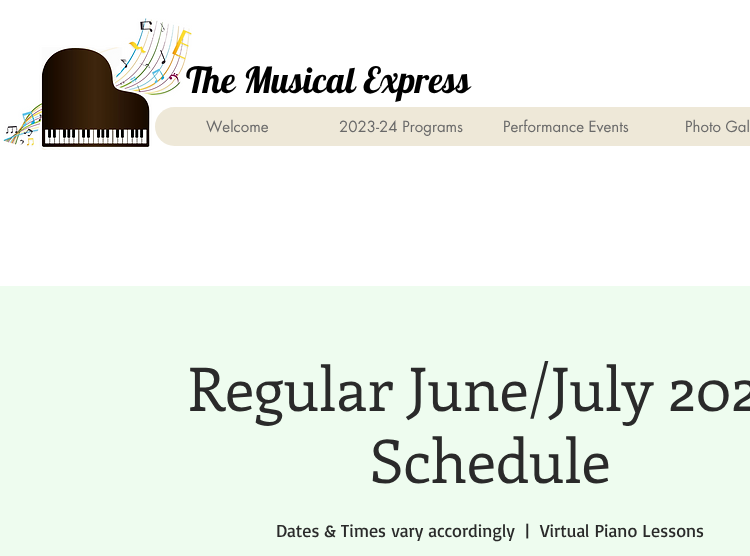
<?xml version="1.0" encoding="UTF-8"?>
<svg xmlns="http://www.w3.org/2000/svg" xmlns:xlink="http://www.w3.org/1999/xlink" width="750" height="556">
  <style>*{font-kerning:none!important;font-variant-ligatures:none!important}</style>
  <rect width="100%" height="100%" fill="#ffffff" />
  <image x="3" y="18" width="189" height="132" xlink:href="image1.png" />
  <rect x="155" y="107" width="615" height="39" rx="19.5" fill="#eee8d8" />
  <rect y="286" width="750" height="270" fill="#eefcef" />
  <text x="186" y="93" style="font-family: Lobster; font-size: 36px; fill: #000000">The Musical Express</text>
  <text x="206" y="132" style="font-family: futura; font-size: 15px; fill: #696969">Welcome</text>
  <text x="339" y="132" style="font-family: futura; font-size: 15px; fill: #696969">2023-24 Programs</text>
  <text x="503" y="132" style="font-family: futura; font-size: 15px; fill: #696969">Performance Events</text>
  <text x="685" y="132" style="font-family: futura; font-size: 15px; fill: #696969">Photo Gal</text>
  <text x="187" y="411" style="font-family: Enriqueta; font-size: 60px; fill: #2a2a2a">Regular June/July 202</text>
  <text x="370" y="483" style="font-family: Enriqueta; font-size: 60px; fill: #2a2a2a">Schedule</text>
  <text x="276" y="537" style="font-family: Basic; font-size: 18px; fill: #2a2a2a">Dates &amp; Times vary accordingly</text>
  <text x="525" y="537" style="font-family: Basic; font-size: 18px; fill: #2a2a2a">|</text>
  <text x="540" y="537" style="font-family: Basic; font-size: 18px; fill: #2a2a2a">Virtual Piano Lessons</text>
</svg>
